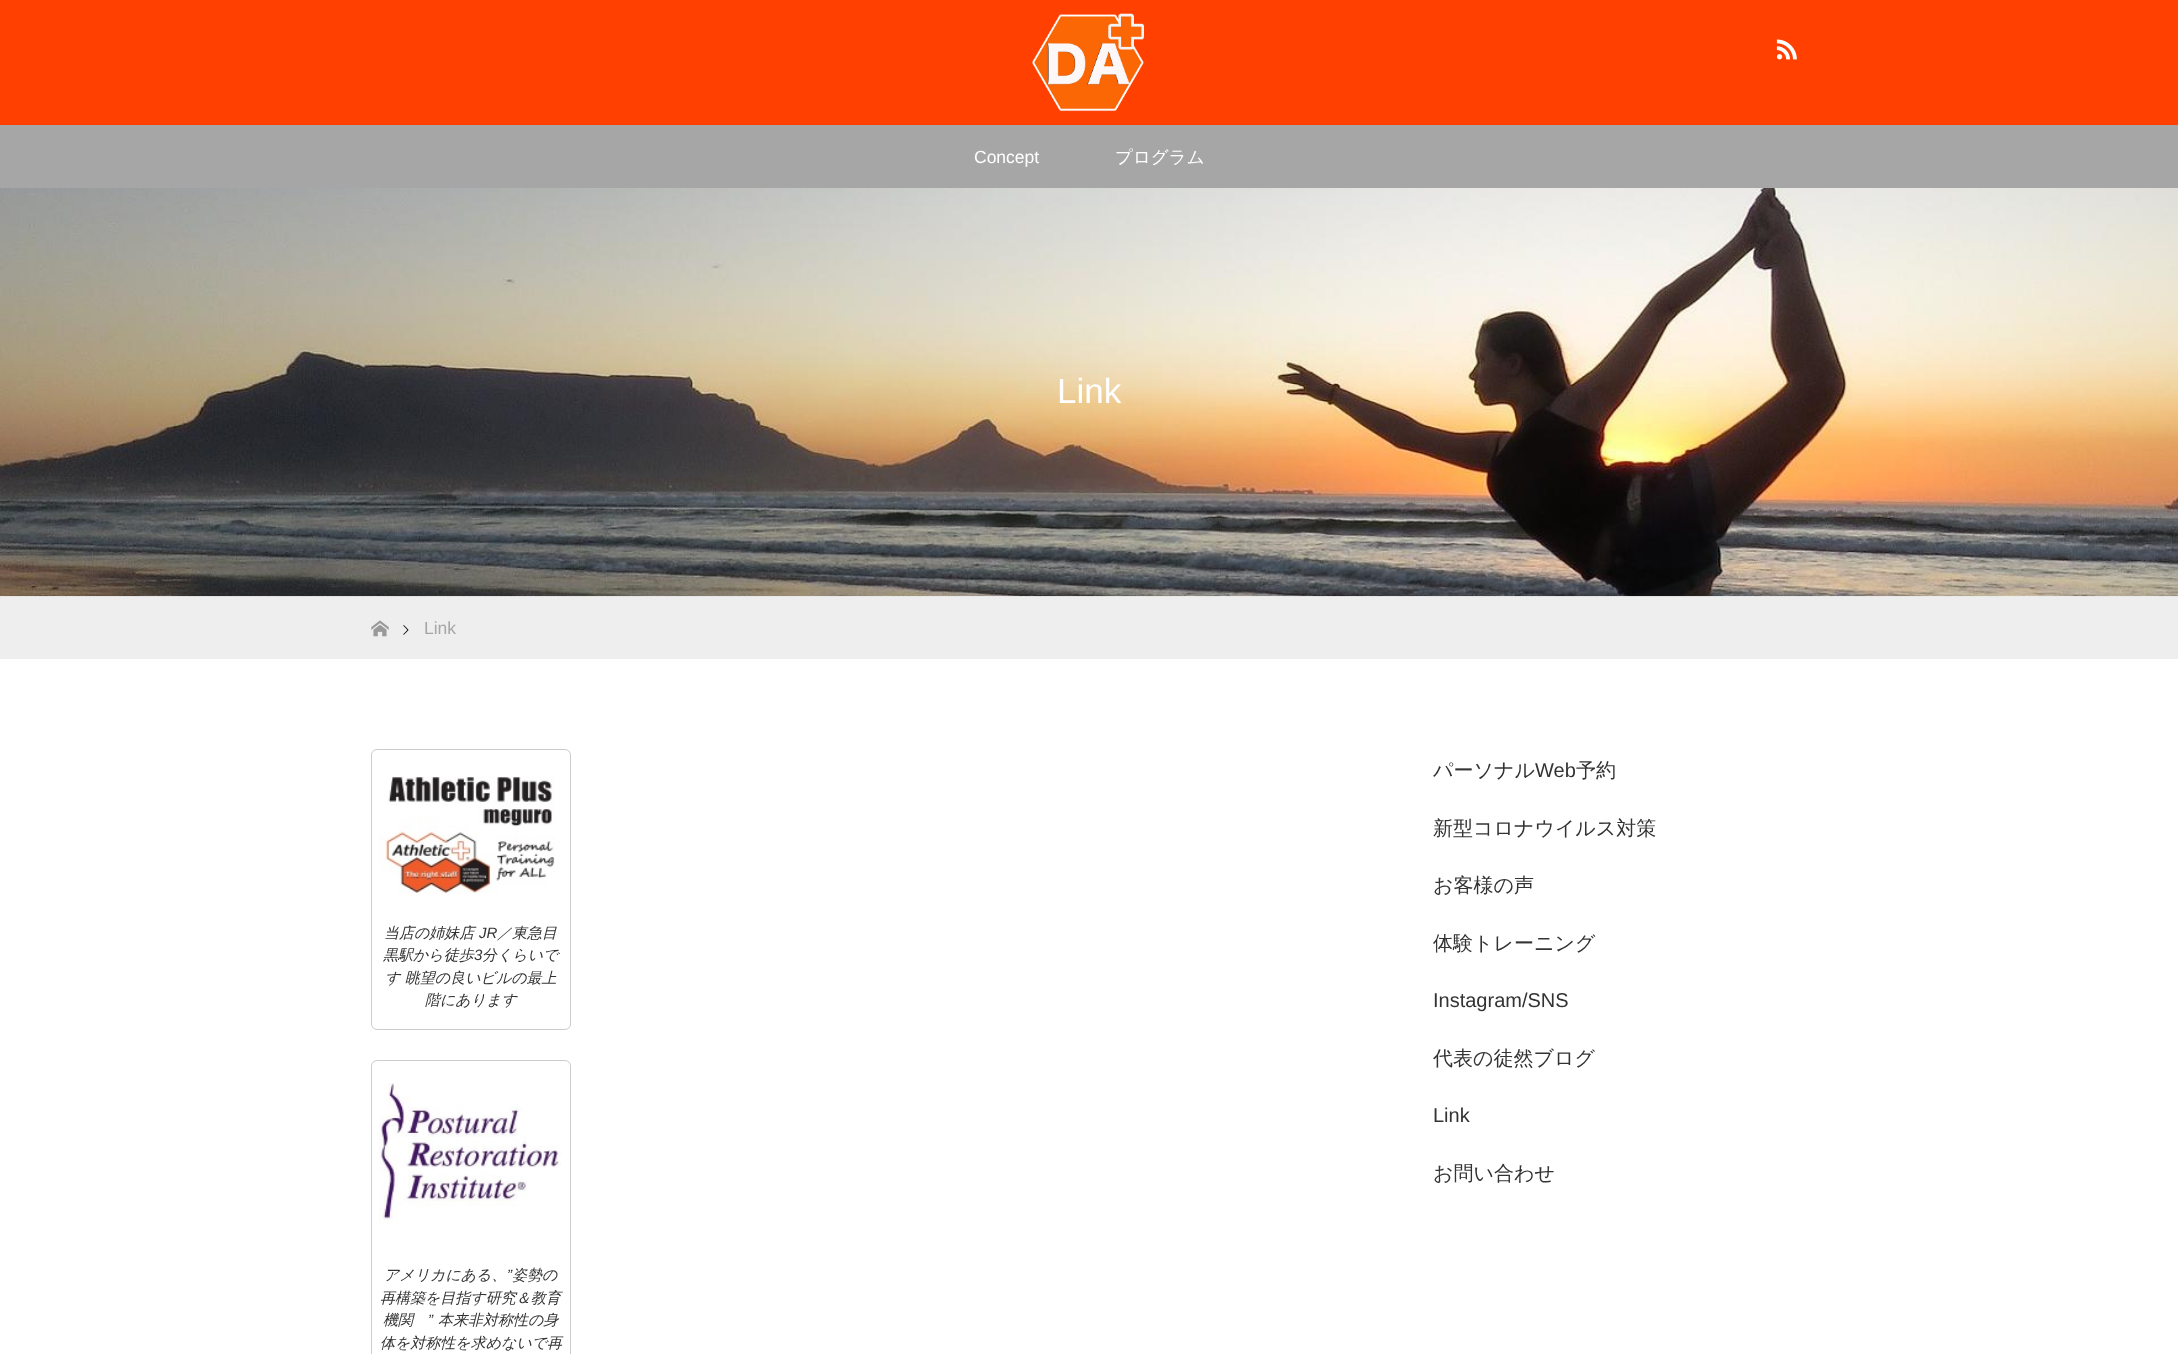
<?xml version="1.0" encoding="UTF-8"?>
<svg xmlns="http://www.w3.org/2000/svg" xmlns:xlink="http://www.w3.org/1999/xlink" width="2178" height="1354">
  <rect width="100%" height="100%" fill="#ffffff" />
  <rect width="2178" height="125" fill="#ff4001" />
  <image x="1032" y="13" width="113" height="99" xlink:href="image1.png" />
  <image x="1776" y="39" width="21" height="21" xlink:href="image2.png" />
  <rect y="125" width="2178" height="63" fill="#a6a6a6" />
  <rect y="596" width="2178" height="63" fill="#eeeeee" />
  <image x="0" y="188" width="2178" height="409" xlink:href="image3.png" />
  <image x="371" y="620" width="18" height="17" xlink:href="image4.png" />
  <image x="403" y="625" width="6" height="10" xlink:href="image5.png" />
  <rect x="371.5" y="749.5" width="199" height="280" rx="5.5" fill="none" stroke="#cccccc" />
  <image x="379" y="776" width="176" height="118" xlink:href="image6.png" />
  <rect x="371.5" y="1060.5" width="199" height="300" rx="5.5" fill="none" stroke="#cccccc" />
  <image x="379" y="1083" width="182" height="142" xlink:href="image7.png" />
  <text x="974" y="163" style="font-family: Liberation Sans; font-size: 17.5px; fill: #ffffff">Concept</text>
  <text x="1115" y="163" style="font-family: WenQuanYi Zen Hei; font-size: 17.5px; font-weight: 500; fill: #ffffff">プログラム</text>
  <text x="1057" y="403" style="font-family: Liberation Sans; font-size: 35px; fill: #ffffff">Link</text>
  <text x="424" y="634" style="font-family: Liberation Sans; font-size: 17.5px; fill: #a6a6a6">Link</text>
  <text x="384" y="938" style="font-family: WenQuanYi Zen Hei; font-size: 15px; font-weight: 500; font-style: italic; fill: #333333">当店の姉妹店</text>
  <text x="479" y="938" style="font-family: Liberation Sans; font-size: 15px; font-style: italic; fill: #333333">JR</text>
  <text x="497" y="938" style="font-family: WenQuanYi Zen Hei; font-size: 15px; font-weight: 500; font-style: italic; fill: #333333">／東急目</text>
  <text x="383" y="960" style="font-family: WenQuanYi Zen Hei; font-size: 15px; font-weight: 500; font-style: italic; fill: #333333">黒駅から徒歩</text>
  <text x="474" y="960" style="font-family: Liberation Sans; font-size: 15px; font-style: italic; fill: #333333">3</text>
  <text x="482" y="960" style="font-family: WenQuanYi Zen Hei; font-size: 15px; font-weight: 500; font-style: italic; fill: #333333">分くらいで</text>
  <text x="385" y="983" style="font-family: WenQuanYi Zen Hei; font-size: 15px; font-weight: 500; font-style: italic; fill: #333333">す 眺望の良いビルの最上</text>
  <text x="425" y="1005" style="font-family: WenQuanYi Zen Hei; font-size: 15px; font-weight: 500; font-style: italic; fill: #333333">階にあります</text>
  <text x="384" y="1280" style="font-family: WenQuanYi Zen Hei; font-size: 15px; font-weight: 500; font-style: italic; fill: #333333">アメリカにある、</text>
  <text x="507" y="1280" style="font-family: Liberation Sans; font-size: 15px; font-style: italic; fill: #333333">”</text>
  <text x="512" y="1280" style="font-family: WenQuanYi Zen Hei; font-size: 15px; font-weight: 500; font-style: italic; fill: #333333">姿勢の</text>
  <text x="380" y="1303" style="font-family: WenQuanYi Zen Hei; font-size: 15px; font-weight: 500; font-style: italic; fill: #333333">再構築を目指す研究＆教育</text>
  <text x="383" y="1325" style="font-family: WenQuanYi Zen Hei; font-size: 15px; font-weight: 500; font-style: italic; fill: #333333">機関</text>
  <text x="428" y="1325" style="font-family: Liberation Sans; font-size: 15px; font-style: italic; fill: #333333">”</text>
  <text x="438" y="1325" style="font-family: WenQuanYi Zen Hei; font-size: 15px; font-weight: 500; font-style: italic; fill: #333333">本来非対称性の身</text>
  <text x="380" y="1348" style="font-family: WenQuanYi Zen Hei; font-size: 15px; font-weight: 500; font-style: italic; fill: #333333">体を対称性を求めないで再</text>
  <text x="1433" y="777" style="font-family: WenQuanYi Zen Hei; font-size: 20px; font-weight: 500; fill: #333333">パーソナル</text>
  <text x="1535" y="777" style="font-family: Liberation Sans; font-size: 20px; fill: #333333">Web</text>
  <text x="1576" y="777" style="font-family: WenQuanYi Zen Hei; font-size: 20px; font-weight: 500; fill: #333333">予約</text>
  <text x="1433" y="835" style="font-family: WenQuanYi Zen Hei; font-size: 20px; font-weight: 500; fill: #333333">新型コロナウイルス対策</text>
  <text x="1433" y="892" style="font-family: WenQuanYi Zen Hei; font-size: 20px; font-weight: 500; fill: #333333">お客様の声</text>
  <text x="1433" y="950" style="font-family: WenQuanYi Zen Hei; font-size: 20px; font-weight: 500; fill: #333333">体験トレーニング</text>
  <text x="1433" y="1007" style="font-family: Liberation Sans; font-size: 20px; fill: #333333">Instagram/SNS</text>
  <text x="1433" y="1065" style="font-family: WenQuanYi Zen Hei; font-size: 20px; font-weight: 500; fill: #333333">代表の徒然ブログ</text>
  <text x="1433" y="1122" style="font-family: Liberation Sans; font-size: 20px; fill: #333333">Link</text>
  <text x="1433" y="1180" style="font-family: WenQuanYi Zen Hei; font-size: 20px; font-weight: 500; fill: #333333">お問い合わせ</text>
</svg>
